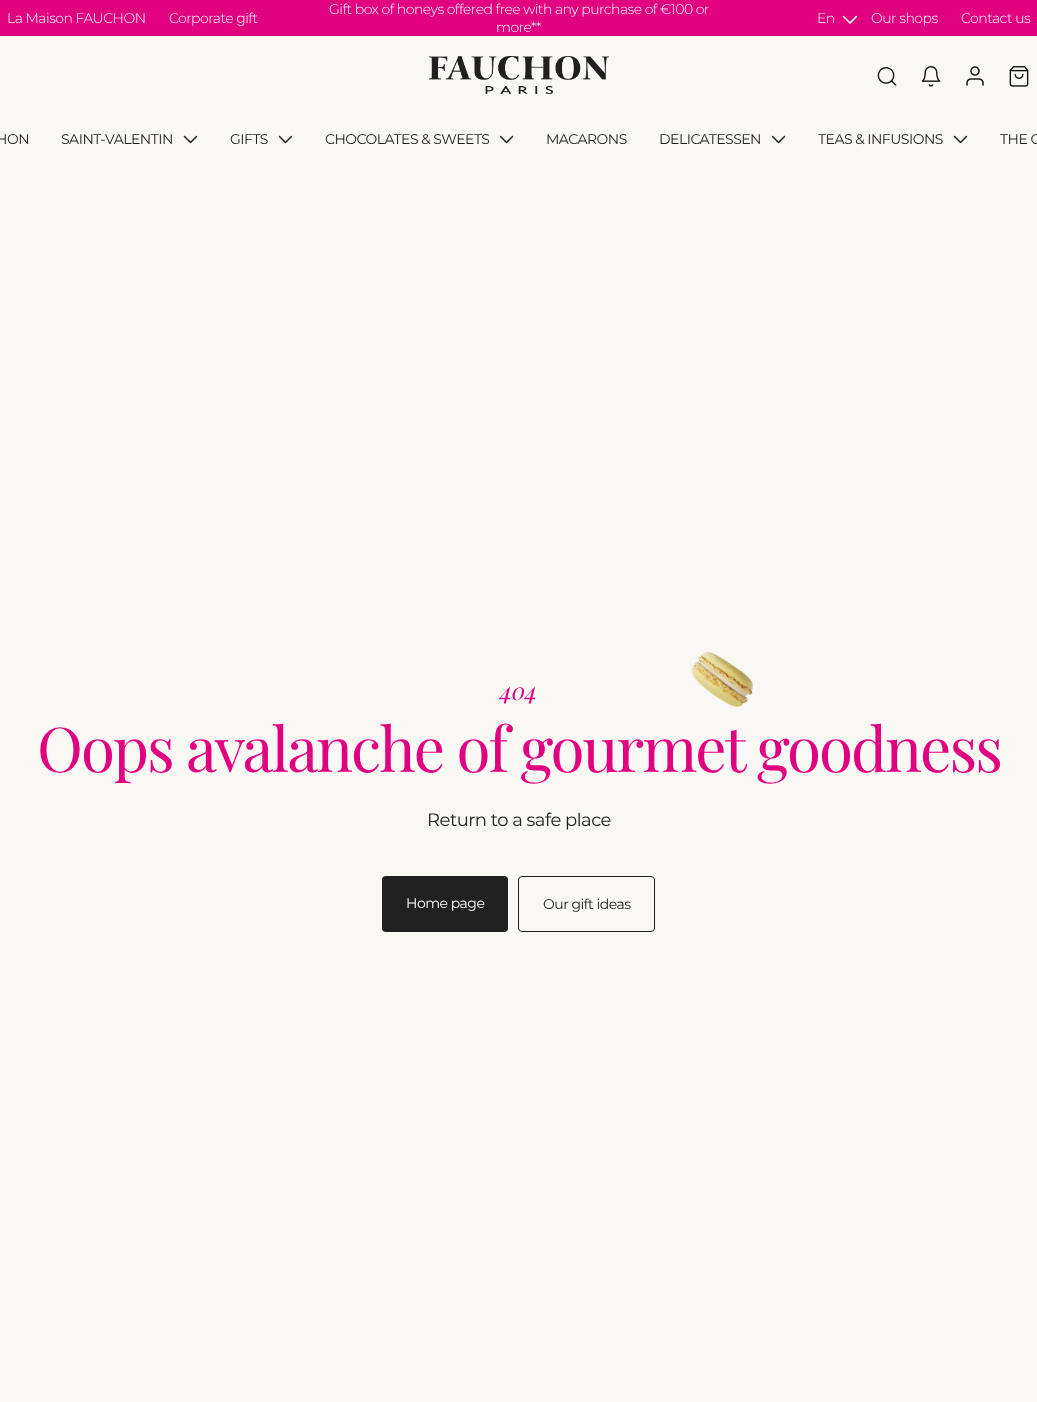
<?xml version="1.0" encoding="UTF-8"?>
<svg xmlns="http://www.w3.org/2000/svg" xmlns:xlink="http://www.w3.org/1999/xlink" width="1037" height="1402">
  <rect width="100%" height="100%" fill="#f9f8f5" />
  <rect width="1037" height="35" fill="#e10080" />
  <rect y="35" width="1037" height="1" fill="#d00177" />
  <image x="842" y="15" width="16" height="9" xlink:href="image1.png" />
  <image x="429" y="56" width="180" height="38" xlink:href="image2.png" />
  <image x="877" y="67" width="20" height="19" xlink:href="image3.png" />
  <image x="921" y="66" width="20" height="21" xlink:href="image4.png" />
  <image x="966" y="66" width="18" height="20" xlink:href="image5.png" />
  <image x="1009" y="66" width="20" height="21" xlink:href="image6.png" />
  <image x="183" y="135" width="15" height="9" xlink:href="image7.png" />
  <image x="278" y="135" width="15" height="9" xlink:href="image7.png" />
  <image x="499" y="135" width="15" height="9" xlink:href="image7.png" />
  <image x="771" y="135" width="15" height="9" xlink:href="image7.png" />
  <image x="953" y="135" width="15" height="9" xlink:href="image7.png" />
  <image x="691" y="651" width="62" height="56" xlink:href="image8.png" />
  <rect x="382" y="876" width="126" height="56" rx="4" fill="#212121" />
  <rect x="518.5" y="876.5" width="136" height="55" rx="3.5" fill="none" stroke="#212121" />
  <text x="7" y="23" style="font-family: Montserrat; font-size: 14px; font-weight: 300; letter-spacing: -0.5px; fill: #ffffff">La Maison FAUCHON</text>
  <text x="169" y="23" style="font-family: Montserrat; font-size: 14px; font-weight: 300; letter-spacing: -0.5px; fill: #ffffff">Corporate gift</text>
  <text x="329" y="14" style="font-family: Montserrat; font-size: 14px; font-weight: 300; letter-spacing: -0.5px; fill: #ffffff">Gift box of honeys offered free with any purchase of €100 or</text>
  <text x="496" y="32" style="font-family: Montserrat; font-size: 14px; font-weight: 300; letter-spacing: -0.5px; fill: #ffffff">more**</text>
  <text x="817" y="23" style="font-family: Montserrat; font-size: 14px; font-weight: 300; letter-spacing: -0.5px; fill: #ffffff">En</text>
  <text x="871" y="23" style="font-family: Montserrat; font-size: 14px; font-weight: 300; letter-spacing: -0.5px; fill: #ffffff">Our shops</text>
  <text x="961" y="23" style="font-family: Montserrat; font-size: 14px; font-weight: 300; letter-spacing: -0.5px; fill: #ffffff">Contact us</text>
  <text x="-4" y="144" style="font-family: Montserrat; font-size: 14px; letter-spacing: -0.5px; fill: #212121">HON</text>
  <text x="61" y="144" style="font-family: Montserrat; font-size: 14px; letter-spacing: -0.5px; fill: #212121">SAINT-VALENTIN</text>
  <text x="230" y="144" style="font-family: Montserrat; font-size: 14px; letter-spacing: -0.5px; fill: #212121">GIFTS</text>
  <text x="325" y="144" style="font-family: Montserrat; font-size: 14px; letter-spacing: -0.5px; fill: #212121">CHOCOLATES &amp; SWEETS</text>
  <text x="546" y="144" style="font-family: Montserrat; font-size: 14px; letter-spacing: -0.5px; fill: #212121">MACARONS</text>
  <text x="659" y="144" style="font-family: Montserrat; font-size: 14px; letter-spacing: -0.5px; fill: #212121">DELICATESSEN</text>
  <text x="818" y="144" style="font-family: Montserrat; font-size: 14px; letter-spacing: -0.5px; fill: #212121">TEAS &amp; INFUSIONS</text>
  <text x="1000" y="144" style="font-family: Montserrat; font-size: 14px; letter-spacing: -0.5px; fill: #212121">THE C</text>
  <text x="500" y="700" style="font-family: Playfair Display; font-size: 24px; font-style: italic; letter-spacing: -0.5px; fill: #e10080">404</text>
  <text x="37" y="772" style="font-family: Playfair Display; font-size: 62px; letter-spacing: -2px; fill: #e10080">Oops avalanche of gourmet goodness</text>
  <text x="427" y="826" style="font-family: Montserrat; font-size: 18px; letter-spacing: -0.5px; fill: #212121">Return to a safe place</text>
  <text x="406" y="908" style="font-family: Montserrat; font-size: 14px; letter-spacing: -0.5px; fill: #ffffff">Home page</text>
  <text x="543" y="909" style="font-family: Montserrat; font-size: 14px; letter-spacing: -0.5px; fill: #212121">Our gift ideas</text>
</svg>
